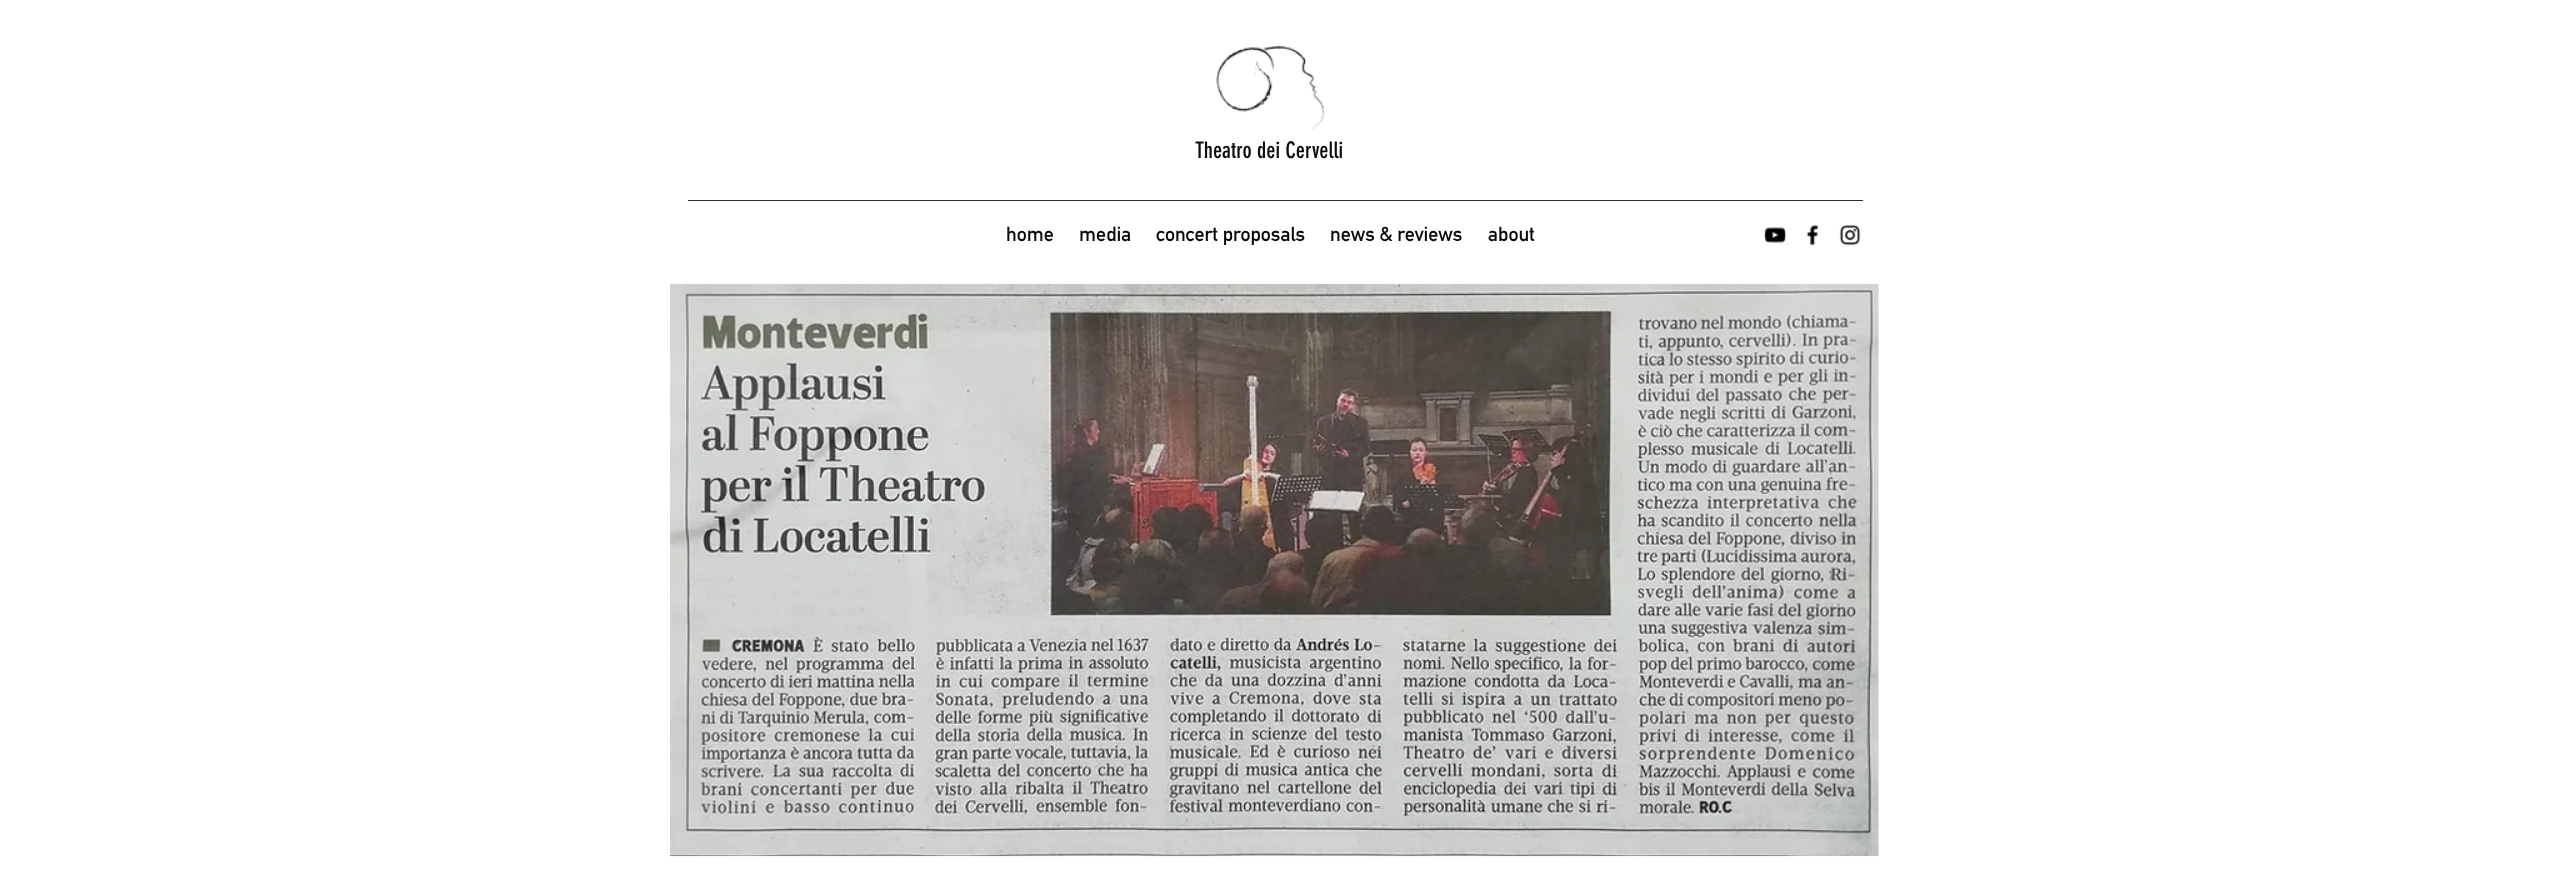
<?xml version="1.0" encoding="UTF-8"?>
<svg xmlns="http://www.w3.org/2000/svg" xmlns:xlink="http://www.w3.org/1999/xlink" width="2549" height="879">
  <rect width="100%" height="100%" fill="#ffffff" />
  <image x="1216" y="46" width="109" height="84" xlink:href="image1.png" />
  <rect x="688" y="200" width="1175" height="1" fill="#303031" />
  <image x="1764" y="227" width="23" height="16" xlink:href="image2.png" />
  <image x="1807" y="224" width="12" height="22" xlink:href="image3.png" />
  <image x="1839" y="224" width="22" height="22" xlink:href="image4.png" />
  <image x="670" y="283" width="1209" height="574" xlink:href="image5.png" />
  <text x="1195" y="158" style="font-family: 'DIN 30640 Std'; font-size: 22.5px; font-weight: bold; fill: #0c0c0d">Theatro dei Cervelli</text>
  <text x="1006" y="241" style="font-family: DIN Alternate; font-size: 20px; font-weight: bold; fill: #0c0c0d">home</text>
  <text x="1079" y="241" style="font-family: DIN Alternate; font-size: 20px; font-weight: bold; fill: #0c0c0d">media</text>
  <text x="1156" y="241" style="font-family: DIN Alternate; font-size: 20px; font-weight: bold; fill: #0c0c0d">concert proposals</text>
  <text x="1330" y="241" style="font-family: DIN Alternate; font-size: 20px; font-weight: bold; fill: #0c0c0d">news &amp; reviews</text>
  <text x="1488" y="241" style="font-family: DIN Alternate; font-size: 20px; font-weight: bold; fill: #0c0c0d">about</text>
</svg>
